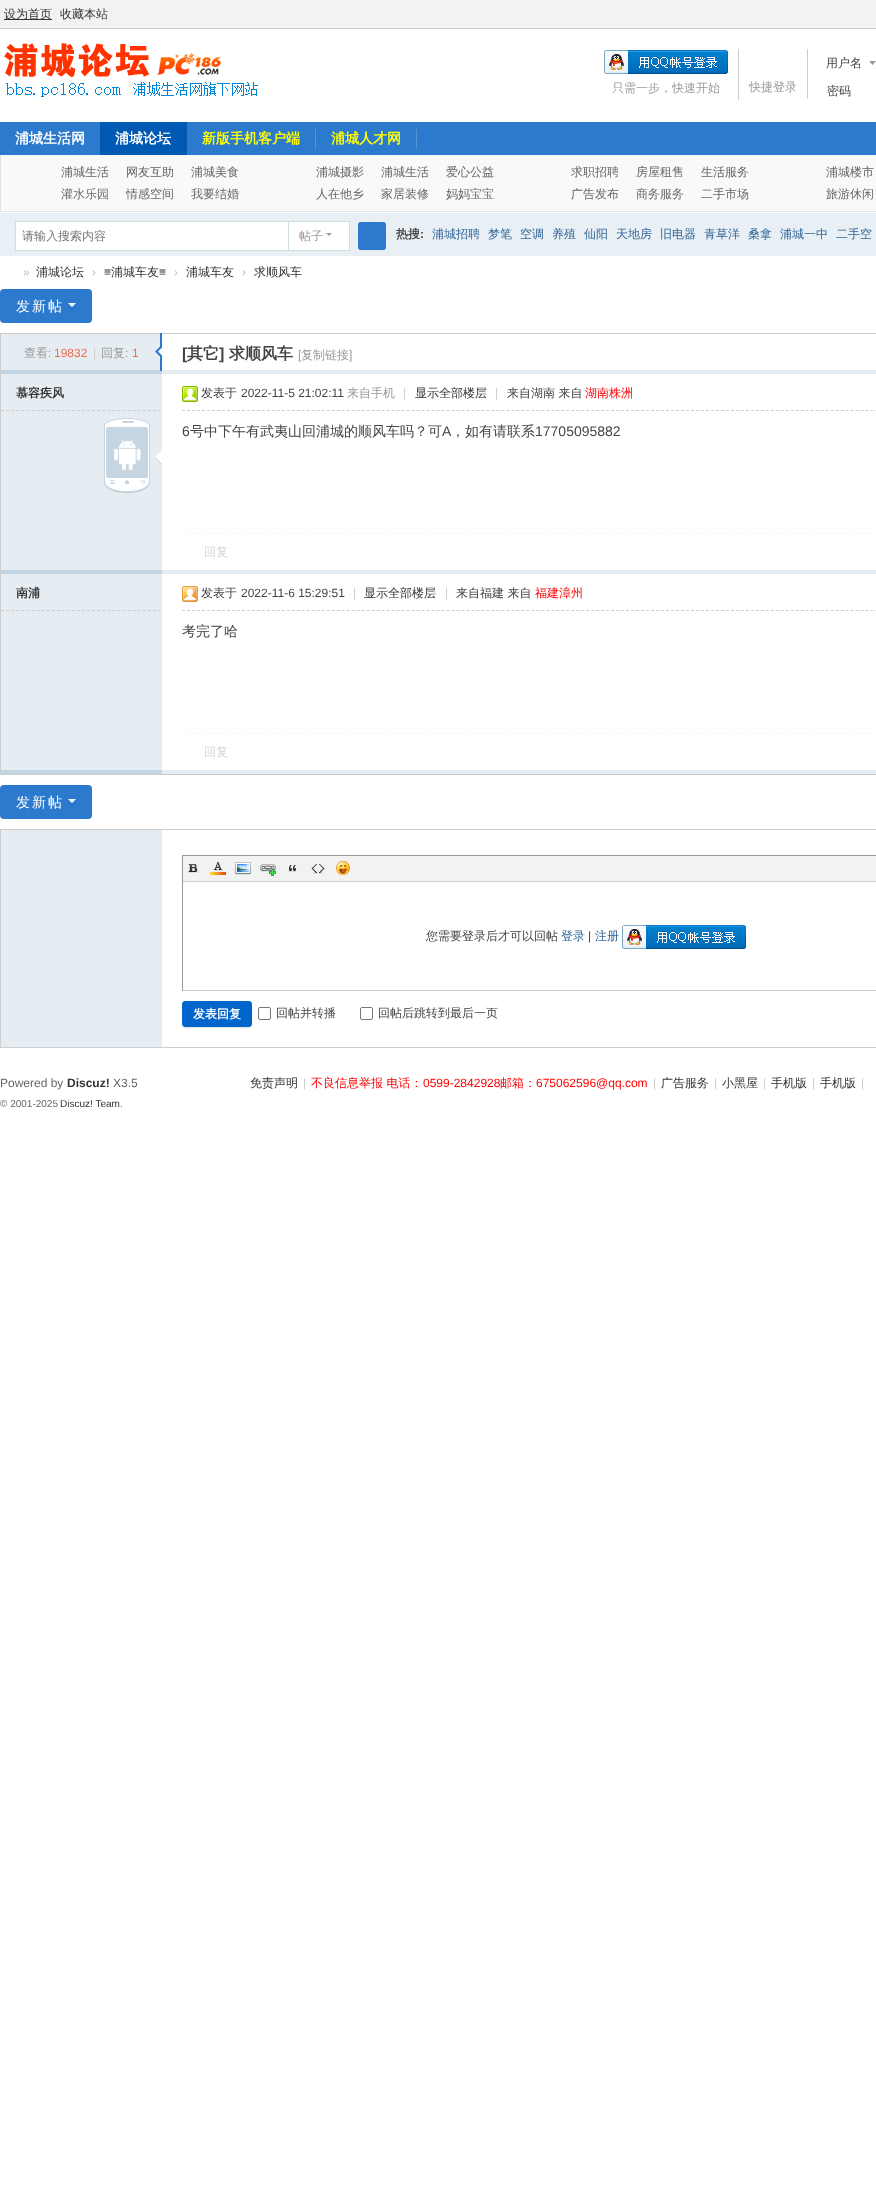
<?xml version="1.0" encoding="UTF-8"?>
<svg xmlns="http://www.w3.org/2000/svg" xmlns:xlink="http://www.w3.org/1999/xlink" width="876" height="2192">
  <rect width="100%" height="100%" fill="#ffffff" />
  <rect width="876" height="28" fill="#f2f2f2" />
  <rect y="28" width="876" height="1" fill="#cdcdcd" />
  <rect x="4" y="19" width="48" height="1" fill="#333333" />
  <image x="4" y="43" width="254" height="54" xlink:href="image1.png" />
  <rect x="738" y="49" width="1" height="51" fill="#cdcdcd" />
  <image x="604" y="50" width="124" height="24" xlink:href="image2.png" />
  <rect x="807" y="49" width="1" height="50" fill="#cdcdcd" />
  <path d="M 876 61 h -7 l 3.5 4 z" fill="#999999" />
  <rect y="122" width="876" height="33" fill="#2b7acd" />
  <rect x="100" y="122" width="87" height="33" fill="#005ab4" />
  <rect x="315" y="129" width="1" height="20" fill="#5595d7" />
  <rect x="416" y="129" width="1" height="20" fill="#5595d7" />
  <rect x="1" y="155" width="875" height="56" fill="#f7f9fb" />
  <rect y="211" width="876" height="1" fill="#e3e3e3" />
  <rect y="155" width="1" height="57" fill="#e3e3e3" />
  <rect y="213" width="876" height="43" fill="#e8eff5" />
  <rect x="287" y="221" width="63" height="1" fill="#cfdee3" />
  <rect x="349" y="221" width="1" height="30" fill="#cfdee3" />
  <rect x="287" y="250" width="63" height="1" fill="#cfdee3" />
  <rect x="15.5" y="221.5" width="273" height="29" fill="#ffffff" stroke="#cfdee3" />
  <rect x="289" y="222" width="60" height="28" fill="#ffffff" />
  <path d="M 326 233 h 6 l -3 3 z" fill="#999999" />
  <path d="M 358 247 c 0 4.5 3 4 6.5 4 h 15 c 3.5 0 6.5 0.5 6.5 -4 c 0 1.5 -1.5 3 -3 3 h -22 c -1.5 0 -3 -1.5 -3 -3 z" fill="#e5e5e5" />
  <rect x="358" y="222" width="28" height="28" rx="3" fill="#2b7acd" />
  <rect y="289" width="92" height="34" rx="4" fill="#2b7acd" />
  <path d="M 68 303 h 8 l -4 4 z" fill="#ffffff" />
  <rect x="0.5" y="333.5" width="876" height="441" fill="none" stroke="#cdcdcd" />
  <rect x="1" y="334" width="161" height="36" fill="#e5edf2" />
  <rect x="1" y="370" width="161" height="4" fill="#c2d5e3" />
  <image x="155" y="333" width="7" height="38" xlink:href="image3.png" />
  <rect x="162" y="370" width="714" height="4" fill="#e5edf2" />
  <rect x="1" y="374" width="161" height="196" fill="#e5edf2" />
  <path d="M 1 410.5 h 160" fill="none" stroke="#cdcdcd" stroke-dasharray="3 2.06" />
  <image x="155" y="450" width="7" height="15" xlink:href="image4.png" />
  <image x="104" y="418" width="46" height="76" xlink:href="image5.png" />
  <path d="M 182 410.5 h 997" fill="none" stroke="#cdcdcd" stroke-dasharray="3 1.99" />
  <image x="182" y="386" width="16" height="16" xlink:href="image6.png" />
  <path d="M 182 533.5 h 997" fill="none" stroke="#f5f5f5" stroke-dasharray="3 1.99" />
  <rect x="1" y="570" width="161" height="4" fill="#c2d5e3" />
  <rect x="162" y="570" width="714" height="4" fill="#e5edf2" />
  <rect x="1" y="574" width="161" height="196" fill="#e5edf2" />
  <path d="M 1 610.5 h 160" fill="none" stroke="#cdcdcd" stroke-dasharray="3 2.06" />
  <path d="M 182 610.5 h 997" fill="none" stroke="#cdcdcd" stroke-dasharray="3 1.99" />
  <image x="182" y="586" width="16" height="16" xlink:href="image7.png" />
  <path d="M 182 733.5 h 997" fill="none" stroke="#f5f5f5" stroke-dasharray="3 1.99" />
  <rect x="161" y="770" width="1" height="5" fill="#c2d5e3" />
  <rect x="1" y="770" width="161" height="4" fill="#c2d5e3" />
  <rect x="162" y="770" width="714" height="4" fill="#e5edf2" />
  <rect y="785" width="92" height="34" rx="4" fill="#2b7acd" />
  <path d="M 68 799 h 8 l -4 4 z" fill="#ffffff" />
  <rect x="0.5" y="829.5" width="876" height="218" fill="none" stroke="#cdcdcd" />
  <rect x="161" y="1047" width="1" height="1" fill="#c2d5e3" />
  <rect x="1" y="830" width="161" height="217" fill="#e5edf2" />
  <rect x="182" y="855" width="694" height="1" fill="#999999" />
  <rect x="182" y="990" width="694" height="1" fill="#cccccc" />
  <rect x="182" y="855" width="1" height="136" fill="#999999" />
  <rect x="183" y="856" width="693" height="25" fill="#f2f2f2" />
  <rect x="183" y="881" width="693" height="1" fill="#cdcdcd" />
  <image x="188" y="864" width="11" height="9" xlink:href="image8.png" />
  <image x="210" y="862" width="16" height="13" xlink:href="image9.png" />
  <image x="235" y="862" width="16" height="13" xlink:href="image10.png" />
  <image x="260" y="864" width="17" height="12" xlink:href="image11.png" />
  <image x="288" y="865" width="9" height="7" xlink:href="image12.png" />
  <image x="311" y="864" width="14" height="10" xlink:href="image13.png" />
  <image x="335" y="861" width="15" height="14" xlink:href="image14.png" />
  <image x="622" y="925" width="124" height="24" xlink:href="image2.png" />
  <path d="M 182 1024 c 0 7 9 4 14 4 h 42 c 5 0 14 3 14 -4 c 0 2 -1 3 -3 3 h -64 c -2 0 -3 -1 -3 -3 z" fill="#e5e5e5" />
  <rect x="182.5" y="1001.5" width="69" height="25" rx="2.5" fill="#0066cc" stroke="#0066cc" />
  <rect x="258.5" y="1007.5" width="12" height="12" rx="1.5" fill="none" stroke="#767676" />
  <rect x="360.5" y="1007.5" width="12" height="12" rx="1.5" fill="none" stroke="#767676" />
  <text x="4" y="18" style="font-family: WenQuanYi Zen Hei; font-size: 12px; font-weight: 500; fill: #333333">设为首页</text>
  <text x="60" y="18" style="font-family: WenQuanYi Zen Hei; font-size: 12px; font-weight: 500; fill: #333333">收藏本站</text>
  <text x="612" y="92" style="font-family: WenQuanYi Zen Hei; font-size: 12px; font-weight: 500; fill: #999999">只需一步，快速开始</text>
  <text x="749" y="91" style="font-family: WenQuanYi Zen Hei; font-size: 12px; font-weight: 500; fill: #999999">快捷登录</text>
  <text x="826" y="67" style="font-family: WenQuanYi Zen Hei; font-size: 12px; font-weight: 500; fill: #444444">用户名</text>
  <text x="827" y="95" style="font-family: WenQuanYi Zen Hei; font-size: 12px; font-weight: 500; fill: #444444">密码</text>
  <text x="15" y="143" style="font-family: WenQuanYi Zen Hei; font-size: 14px; font-weight: bold; fill: #ffffff">浦城生活网</text>
  <text x="115" y="143" style="font-family: WenQuanYi Zen Hei; font-size: 14px; font-weight: bold; fill: #ffffff">浦城论坛</text>
  <text x="202" y="143" style="font-family: WenQuanYi Zen Hei; font-size: 14px; font-weight: bold; fill: #ffff00">新版手机客户端</text>
  <text x="331" y="143" style="font-family: WenQuanYi Zen Hei; font-size: 14px; font-weight: bold; fill: #ffff00">浦城人才网</text>
  <text x="61" y="176" style="font-family: WenQuanYi Zen Hei; font-size: 12px; font-weight: 500; fill: #666666">浦城生活</text>
  <text x="126" y="176" style="font-family: WenQuanYi Zen Hei; font-size: 12px; font-weight: 500; fill: #666666">网友互助</text>
  <text x="191" y="176" style="font-family: WenQuanYi Zen Hei; font-size: 12px; font-weight: 500; fill: #666666">浦城美食</text>
  <text x="61" y="198" style="font-family: WenQuanYi Zen Hei; font-size: 12px; font-weight: 500; fill: #666666">灌水乐园</text>
  <text x="126" y="198" style="font-family: WenQuanYi Zen Hei; font-size: 12px; font-weight: 500; fill: #666666">情感空间</text>
  <text x="191" y="198" style="font-family: WenQuanYi Zen Hei; font-size: 12px; font-weight: 500; fill: #666666">我要结婚</text>
  <text x="316" y="176" style="font-family: WenQuanYi Zen Hei; font-size: 12px; font-weight: 500; fill: #666666">浦城摄影</text>
  <text x="381" y="176" style="font-family: WenQuanYi Zen Hei; font-size: 12px; font-weight: 500; fill: #666666">浦城生活</text>
  <text x="446" y="176" style="font-family: WenQuanYi Zen Hei; font-size: 12px; font-weight: 500; fill: #666666">爱心公益</text>
  <text x="316" y="198" style="font-family: WenQuanYi Zen Hei; font-size: 12px; font-weight: 500; fill: #666666">人在他乡</text>
  <text x="381" y="198" style="font-family: WenQuanYi Zen Hei; font-size: 12px; font-weight: 500; fill: #666666">家居装修</text>
  <text x="446" y="198" style="font-family: WenQuanYi Zen Hei; font-size: 12px; font-weight: 500; fill: #666666">妈妈宝宝</text>
  <text x="571" y="176" style="font-family: WenQuanYi Zen Hei; font-size: 12px; font-weight: 500; fill: #666666">求职招聘</text>
  <text x="636" y="176" style="font-family: WenQuanYi Zen Hei; font-size: 12px; font-weight: 500; fill: #666666">房屋租售</text>
  <text x="701" y="176" style="font-family: WenQuanYi Zen Hei; font-size: 12px; font-weight: 500; fill: #666666">生活服务</text>
  <text x="571" y="198" style="font-family: WenQuanYi Zen Hei; font-size: 12px; font-weight: 500; fill: #666666">广告发布</text>
  <text x="636" y="198" style="font-family: WenQuanYi Zen Hei; font-size: 12px; font-weight: 500; fill: #666666">商务服务</text>
  <text x="701" y="198" style="font-family: WenQuanYi Zen Hei; font-size: 12px; font-weight: 500; fill: #666666">二手市场</text>
  <text x="826" y="176" style="font-family: WenQuanYi Zen Hei; font-size: 12px; font-weight: 500; fill: #666666">浦城楼市</text>
  <text x="826" y="198" style="font-family: WenQuanYi Zen Hei; font-size: 12px; font-weight: 500; fill: #666666">旅游休闲</text>
  <text x="22" y="240" style="font-family: WenQuanYi Zen Hei; font-size: 12px; font-weight: 500; fill: #757575">请输入搜索内容</text>
  <text x="299" y="240" style="font-family: WenQuanYi Zen Hei; font-size: 12px; font-weight: 500; fill: #999999">帖子</text>
  <text x="396" y="238" style="font-family: WenQuanYi Zen Hei; font-size: 12px; font-weight: bold; fill: #444444">热搜</text>
  <text x="420" y="238" style="font-family: Liberation Sans; font-size: 12px; font-weight: bold; fill: #444444">:</text>
  <text x="432" y="238" style="font-family: WenQuanYi Zen Hei; font-size: 12px; font-weight: 500; fill: #336699">浦城招聘</text>
  <text x="488" y="238" style="font-family: WenQuanYi Zen Hei; font-size: 12px; font-weight: 500; fill: #336699">梦笔</text>
  <text x="520" y="238" style="font-family: WenQuanYi Zen Hei; font-size: 12px; font-weight: 500; fill: #336699">空调</text>
  <text x="552" y="238" style="font-family: WenQuanYi Zen Hei; font-size: 12px; font-weight: 500; fill: #336699">养殖</text>
  <text x="584" y="238" style="font-family: WenQuanYi Zen Hei; font-size: 12px; font-weight: 500; fill: #336699">仙阳</text>
  <text x="616" y="238" style="font-family: WenQuanYi Zen Hei; font-size: 12px; font-weight: 500; fill: #336699">天地房</text>
  <text x="660" y="238" style="font-family: WenQuanYi Zen Hei; font-size: 12px; font-weight: 500; fill: #336699">旧电器</text>
  <text x="704" y="238" style="font-family: WenQuanYi Zen Hei; font-size: 12px; font-weight: 500; fill: #336699">青草洋</text>
  <text x="748" y="238" style="font-family: WenQuanYi Zen Hei; font-size: 12px; font-weight: 500; fill: #336699">桑拿</text>
  <text x="780" y="238" style="font-family: WenQuanYi Zen Hei; font-size: 12px; font-weight: 500; fill: #336699">浦城一中</text>
  <text x="836" y="238" style="font-family: WenQuanYi Zen Hei; font-size: 12px; font-weight: 500; fill: #336699">二手空</text>
  <text x="23" y="276" style="font-family: Liberation Sans; font-size: 12px; fill: #bdbdbd">»</text>
  <text x="36" y="276" style="font-family: WenQuanYi Zen Hei; font-size: 12px; font-weight: 500; fill: #333333">浦城论坛</text>
  <text x="92" y="276" style="font-family: Liberation Sans; font-size: 12px; fill: #bdbdbd">›</text>
  <text x="104" y="276" style="font-family: Liberation Sans; font-size: 12px; fill: #333333">≡</text>
  <text x="111" y="276" style="font-family: WenQuanYi Zen Hei; font-size: 12px; font-weight: 500; fill: #333333">浦城车友</text>
  <text x="159" y="276" style="font-family: Liberation Sans; font-size: 12px; fill: #333333">≡</text>
  <text x="174" y="276" style="font-family: Liberation Sans; font-size: 12px; fill: #bdbdbd">›</text>
  <text x="186" y="276" style="font-family: WenQuanYi Zen Hei; font-size: 12px; font-weight: 500; fill: #333333">浦城车友</text>
  <text x="242" y="276" style="font-family: Liberation Sans; font-size: 12px; fill: #bdbdbd">›</text>
  <text x="254" y="276" style="font-family: WenQuanYi Zen Hei; font-size: 12px; font-weight: 500; fill: #333333">求顺风车</text>
  <text x="16" y="311" style="font-family: WenQuanYi Zen Hei; font-size: 14px; font-weight: 500; letter-spacing: 2px; fill: #ffffff">发新帖</text>
  <text x="24" y="357" style="font-family: WenQuanYi Zen Hei; font-size: 12px; font-weight: 500; fill: #999999">查看</text>
  <text x="48" y="357" style="font-family: Liberation Sans; font-size: 12px; fill: #999999">:</text>
  <text x="54" y="357" style="font-family: Liberation Sans; font-size: 12px; fill: #f26c4f">19832</text>
  <text x="93" y="357" style="font-family: Liberation Sans; font-size: 12px; fill: #cccccc">|</text>
  <text x="101" y="357" style="font-family: WenQuanYi Zen Hei; font-size: 12px; font-weight: 500; fill: #999999">回复</text>
  <text x="125" y="357" style="font-family: Liberation Sans; font-size: 12px; fill: #999999">:</text>
  <text x="132" y="357" style="font-family: Liberation Sans; font-size: 12px; fill: #f26c4f">1</text>
  <text x="182" y="359" style="font-family: Liberation Sans; font-size: 16px; font-weight: bold; fill: #444444">[</text>
  <text x="187" y="359" style="font-family: WenQuanYi Zen Hei; font-size: 16px; font-weight: bold; fill: #444444">其它</text>
  <text x="219" y="359" style="font-family: Liberation Sans; font-size: 16px; font-weight: bold; fill: #444444">]</text>
  <text x="229" y="359" style="font-family: WenQuanYi Zen Hei; font-size: 16px; font-weight: bold; fill: #444444">求顺风车</text>
  <text x="298" y="359" style="font-family: Liberation Sans; font-size: 12px; fill: #999999">[</text>
  <text x="301" y="359" style="font-family: WenQuanYi Zen Hei; font-size: 12px; font-weight: 500; fill: #999999">复制链接</text>
  <text x="349" y="359" style="font-family: Liberation Sans; font-size: 12px; fill: #999999">]</text>
  <text x="16" y="397" style="font-family: WenQuanYi Zen Hei; font-size: 12px; font-weight: bold; fill: #333333">慕容疾风</text>
  <text x="201" y="397" style="font-family: WenQuanYi Zen Hei; font-size: 12px; font-weight: 500; fill: #444444">发表于</text>
  <text x="241" y="397" style="font-family: Liberation Sans; font-size: 12px; fill: #444444">2022-11-5 21:02:11</text>
  <text x="347" y="397" style="font-family: WenQuanYi Zen Hei; font-size: 12px; font-weight: 500; fill: #999999">来自手机</text>
  <text x="403" y="397" style="font-family: Liberation Sans; font-size: 12px; fill: #cccccc">|</text>
  <text x="415" y="397" style="font-family: WenQuanYi Zen Hei; font-size: 12px; font-weight: 500; fill: #333333">显示全部楼层</text>
  <text x="495" y="397" style="font-family: Liberation Sans; font-size: 12px; fill: #cccccc">|</text>
  <text x="507" y="397" style="font-family: WenQuanYi Zen Hei; font-size: 12px; font-weight: 500; fill: #444444">来自湖南 来自</text>
  <text x="585" y="397" style="font-family: WenQuanYi Zen Hei; font-size: 12px; font-weight: 500; fill: #ff0000">湖南株洲</text>
  <text x="182" y="436" style="font-family: Liberation Sans; font-size: 14px; fill: #444444">6</text>
  <text x="190" y="436" style="font-family: WenQuanYi Zen Hei; font-size: 14px; font-weight: 500; fill: #444444">号中下午有武夷山回浦城的顺风车吗？可</text>
  <text x="442" y="436" style="font-family: Liberation Sans; font-size: 14px; fill: #444444">A</text>
  <text x="451" y="436" style="font-family: WenQuanYi Zen Hei; font-size: 14px; font-weight: 500; fill: #444444">，如有请联系</text>
  <text x="535" y="436" style="font-family: Liberation Sans; font-size: 14px; fill: #444444">17705095882</text>
  <text x="204" y="556" style="font-family: WenQuanYi Zen Hei; font-size: 12px; font-weight: 500; fill: #d6d6d6">回复</text>
  <text x="16" y="597" style="font-family: WenQuanYi Zen Hei; font-size: 12px; font-weight: bold; fill: #333333">南浦</text>
  <text x="201" y="597" style="font-family: WenQuanYi Zen Hei; font-size: 12px; font-weight: 500; fill: #444444">发表于</text>
  <text x="241" y="597" style="font-family: Liberation Sans; font-size: 12px; fill: #444444">2022-11-6 15:29:51</text>
  <text x="353" y="597" style="font-family: Liberation Sans; font-size: 12px; fill: #cccccc">|</text>
  <text x="364" y="597" style="font-family: WenQuanYi Zen Hei; font-size: 12px; font-weight: 500; fill: #333333">显示全部楼层</text>
  <text x="445" y="597" style="font-family: Liberation Sans; font-size: 12px; fill: #cccccc">|</text>
  <text x="456" y="597" style="font-family: WenQuanYi Zen Hei; font-size: 12px; font-weight: 500; fill: #444444">来自福建 来自</text>
  <text x="535" y="597" style="font-family: WenQuanYi Zen Hei; font-size: 12px; font-weight: 500; fill: #ff0000">福建漳州</text>
  <text x="182" y="636" style="font-family: WenQuanYi Zen Hei; font-size: 14px; font-weight: 500; fill: #444444">考完了哈</text>
  <text x="204" y="756" style="font-family: WenQuanYi Zen Hei; font-size: 12px; font-weight: 500; fill: #d6d6d6">回复</text>
  <text x="16" y="807" style="font-family: WenQuanYi Zen Hei; font-size: 14px; font-weight: 500; letter-spacing: 2px; fill: #ffffff">发新帖</text>
  <text x="426" y="940" style="font-family: WenQuanYi Zen Hei; font-size: 12px; font-weight: 500; fill: #444444">您需要登录后才可以回帖</text>
  <text x="561" y="940" style="font-family: WenQuanYi Zen Hei; font-size: 12px; font-weight: 500; fill: #336699">登录</text>
  <text x="588" y="940" style="font-family: Liberation Sans; font-size: 12px; fill: #444444">|</text>
  <text x="595" y="940" style="font-family: WenQuanYi Zen Hei; font-size: 12px; font-weight: 500; fill: #336699">注册</text>
  <text x="193" y="1018" style="font-family: WenQuanYi Zen Hei; font-size: 12px; font-weight: bold; fill: #ffffff">发表回复</text>
  <text x="276" y="1017" style="font-family: WenQuanYi Zen Hei; font-size: 12px; font-weight: 500; fill: #444444">回帖并转播</text>
  <text x="378" y="1017" style="font-family: WenQuanYi Zen Hei; font-size: 12px; font-weight: 500; fill: #444444">回帖后跳转到最后一页</text>
  <text x="0" y="1087" style="font-family: Liberation Sans; font-size: 12px; fill: #666666">Powered by</text>
  <text x="67" y="1087" style="font-family: Liberation Sans; font-size: 12px; font-weight: bold; fill: #333333">Discuz!</text>
  <text x="113" y="1087" style="font-family: Liberation Sans; font-size: 12px; fill: #666666">X3.5</text>
  <text x="0" y="1107" style="font-family: Liberation Sans; font-size: 10px; fill: #666666">© 2001-2025</text>
  <text x="60" y="1107" style="font-family: Liberation Sans; font-size: 10px; fill: #333333">Discuz! Team</text>
  <text x="120" y="1107" style="font-family: Liberation Sans; font-size: 10px; fill: #666666">.</text>
  <text x="250" y="1087" style="font-family: WenQuanYi Zen Hei; font-size: 12px; font-weight: 500; fill: #333333">免责声明</text>
  <text x="303" y="1087" style="font-family: Liberation Sans; font-size: 12px; fill: #cccccc">|</text>
  <text x="311" y="1087" style="font-family: WenQuanYi Zen Hei; font-size: 12px; font-weight: 500; fill: #ff0000">不良信息举报 电话：</text>
  <text x="423" y="1087" style="font-family: Liberation Sans; font-size: 12px; fill: #ff0000">0599-2842928</text>
  <text x="500" y="1087" style="font-family: WenQuanYi Zen Hei; font-size: 12px; font-weight: 500; fill: #ff0000">邮箱：</text>
  <text x="536" y="1087" style="font-family: Liberation Sans; font-size: 12px; fill: #ff0000">675062596@qq.com</text>
  <text x="653" y="1087" style="font-family: Liberation Sans; font-size: 12px; fill: #cccccc">|</text>
  <text x="661" y="1087" style="font-family: WenQuanYi Zen Hei; font-size: 12px; font-weight: 500; fill: #333333">广告服务</text>
  <text x="714" y="1087" style="font-family: Liberation Sans; font-size: 12px; fill: #cccccc">|</text>
  <text x="722" y="1087" style="font-family: WenQuanYi Zen Hei; font-size: 12px; font-weight: 500; fill: #333333">小黑屋</text>
  <text x="763" y="1087" style="font-family: Liberation Sans; font-size: 12px; fill: #cccccc">|</text>
  <text x="771" y="1087" style="font-family: WenQuanYi Zen Hei; font-size: 12px; font-weight: 500; fill: #333333">手机版</text>
  <text x="812" y="1087" style="font-family: Liberation Sans; font-size: 12px; fill: #cccccc">|</text>
  <text x="820" y="1087" style="font-family: WenQuanYi Zen Hei; font-size: 12px; font-weight: 500; fill: #333333">手机版</text>
  <text x="861" y="1087" style="font-family: Liberation Sans; font-size: 12px; fill: #cccccc">|</text>
</svg>
